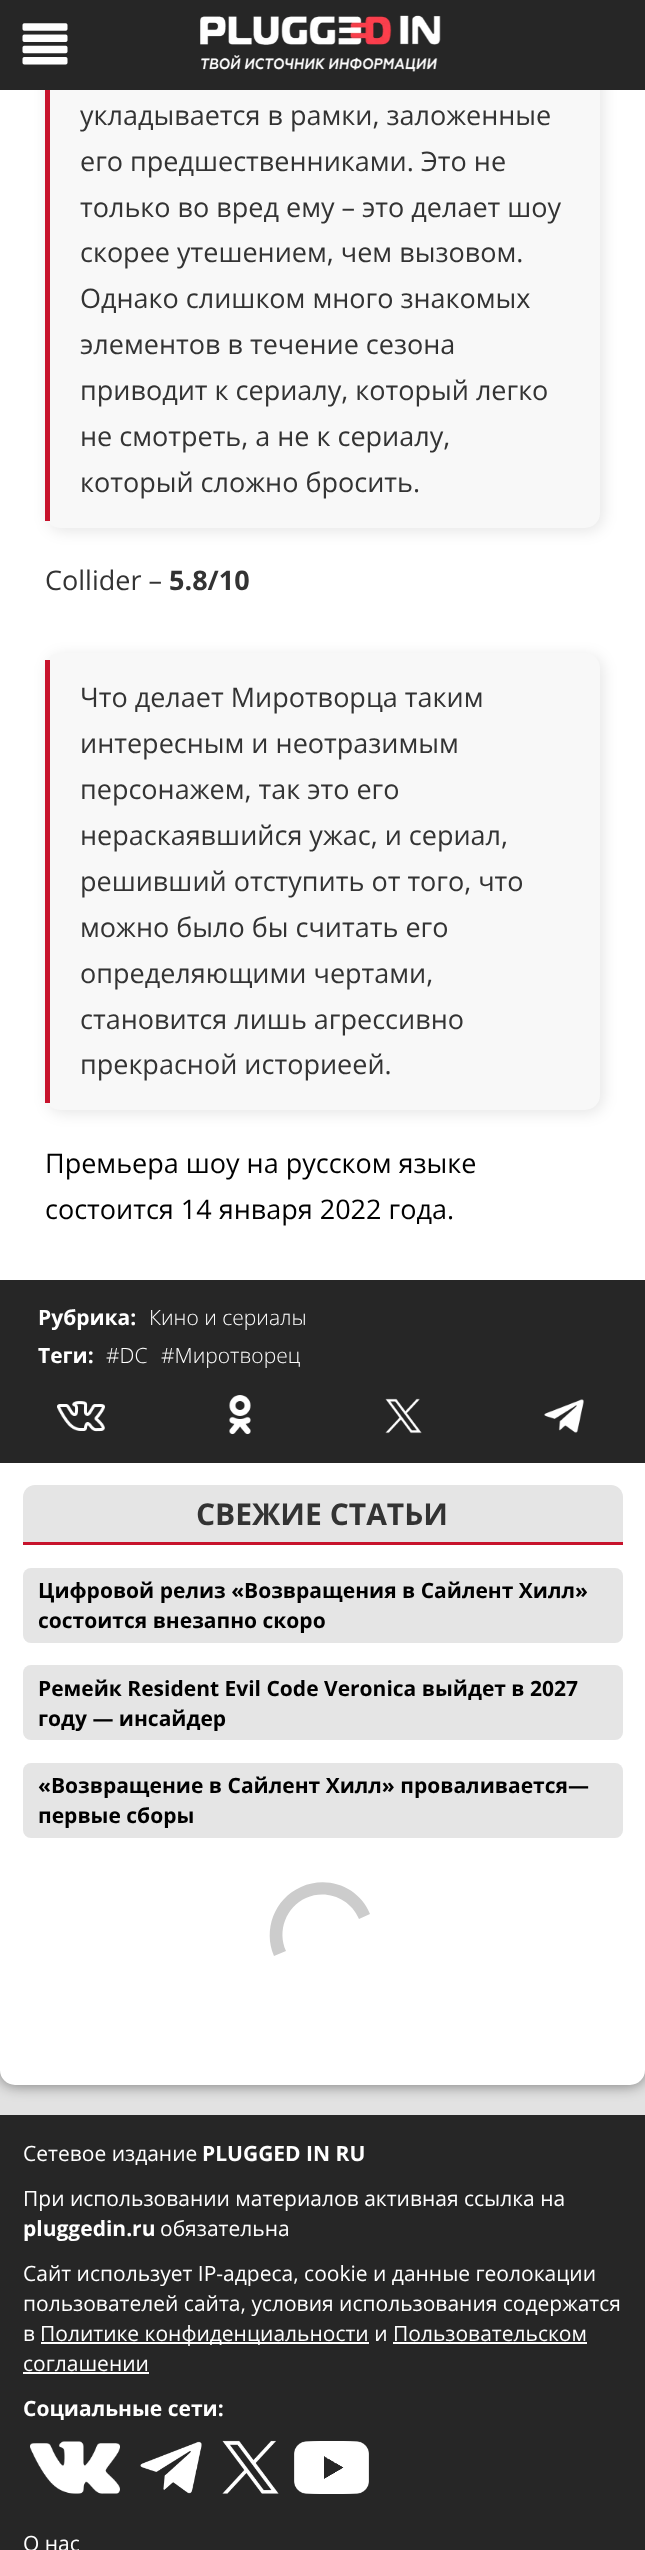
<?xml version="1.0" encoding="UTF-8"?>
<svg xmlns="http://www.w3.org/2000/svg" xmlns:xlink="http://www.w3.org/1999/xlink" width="645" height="2550">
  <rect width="100%" height="100%" fill="#e2e2e2" />
  <rect y="-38" width="645" height="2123" rx="15" fill="#000000" fill-opacity="0.5" filter="blur(7.5px)" />
  <rect y="-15" width="645" height="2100" rx="15" fill="#ffffff" />
  <rect x="48" y="-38" width="555" height="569" rx="15" fill="#000000" fill-opacity="0.1" filter="blur(7.5px)" />
  <rect x="45" y="-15" width="555" height="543" rx="15" fill="#f8f8f8" />
  <rect width="645" height="90" fill="#262626" />
  <image x="22" y="23" width="46" height="42" xlink:href="image1.png" />
  <image x="200" y="15" width="241" height="57" xlink:href="image2.png" />
  <rect x="45" y="90" width="5" height="431" fill="#c7132c" />
  <rect x="48" y="656" width="555" height="457" rx="15" fill="#000000" fill-opacity="0.1" filter="blur(7.5px)" />
  <rect x="45" y="653" width="555" height="457" rx="15" fill="#f8f8f8" />
  <rect x="45" y="660" width="5" height="443" fill="#c7132c" />
  <rect y="1280" width="645" height="183" fill="#262626" />
  <image x="57" y="1401" width="48" height="31" xlink:href="image3.png" />
  <image x="229" y="1395" width="22" height="40" xlink:href="image4.png" />
  <image x="385" y="1398" width="37" height="36" xlink:href="image5.png" />
  <image x="544" y="1399" width="40" height="34" xlink:href="image6.png" />
  <path d="M 35 1485 h 576 c 6.5 0 12 5.5 12 12 v 48 h -600 v -48 c 0 -6.5 5.5 -12 12 -12 z" fill="#e5e5e5" />
  <rect x="23" y="1542" width="600" height="3" fill="#c7132c" />
  <rect x="23" y="1568" width="600" height="75" rx="8" fill="#e5e5e5" />
  <rect x="23" y="1665" width="600" height="75" rx="8" fill="#e5e5e5" />
  <rect x="23" y="1763" width="600" height="75" rx="8" fill="#e5e5e5" />
  <path d="M 370 1914 c -11 -27 -42 -39 -69 -27 c -27 12 -38 43 -27 69 l 12 -5 c -9 -20 0 -44 20 -53 c 20 -9 44 0 53 21 z" fill="#cccccc" />
  <rect y="2115" width="645" height="435" fill="#262626" />
  <rect x="41" y="2342" width="328" height="2" fill="#ffffff" />
  <rect x="393" y="2342" width="194" height="2" fill="#ffffff" />
  <rect x="23" y="2372" width="126" height="2" fill="#ffffff" />
  <image x="30" y="2441" width="90" height="53" xlink:href="image7.png" />
  <image x="140" y="2441" width="62" height="53" xlink:href="image8.png" />
  <image x="222" y="2440" width="57" height="54" xlink:href="image9.png" />
  <image x="294" y="2441" width="75" height="53" xlink:href="image10.png" />
  <text x="80" y="125" style="font-family: Open Sans; font-size: 27px; fill: #333333">укладывается в рамки, заложенные</text>
  <text x="80" y="171" style="font-family: Open Sans; font-size: 27px; fill: #333333">его предшественниками. Это не</text>
  <text x="80" y="217" style="font-family: Open Sans; font-size: 27px; fill: #333333">только во вред ему – это делает шоу</text>
  <text x="80" y="262" style="font-family: Open Sans; font-size: 27px; fill: #333333">скорее утешением, чем вызовом.</text>
  <text x="80" y="308" style="font-family: Open Sans; font-size: 27px; fill: #333333">Однако слишком много знакомых</text>
  <text x="80" y="354" style="font-family: Open Sans; font-size: 27px; fill: #333333">элементов в течение сезона</text>
  <text x="80" y="400" style="font-family: Open Sans; font-size: 27px; fill: #333333">приводит к сериалу, который легко</text>
  <text x="80" y="446" style="font-family: Open Sans; font-size: 27px; fill: #333333">не смотреть, а не к сериалу,</text>
  <text x="80" y="492" style="font-family: Open Sans; font-size: 27px; fill: #333333">который сложно бросить.</text>
  <text x="45" y="590" style="font-family: Open Sans; font-size: 27px; fill: #333333">Collider –</text>
  <text x="169" y="590" style="font-family: Open Sans; font-size: 27px; font-weight: bold; fill: #333333">5.8/10</text>
  <text x="80" y="707" style="font-family: Open Sans; font-size: 27px; fill: #333333">Что делает Миротворца таким</text>
  <text x="80" y="753" style="font-family: Open Sans; font-size: 27px; fill: #333333">интересным и неотразимым</text>
  <text x="80" y="799" style="font-family: Open Sans; font-size: 27px; fill: #333333">персонажем, так это его</text>
  <text x="80" y="845" style="font-family: Open Sans; font-size: 27px; fill: #333333">нераскаявшийся ужас, и сериал,</text>
  <text x="80" y="891" style="font-family: Open Sans; font-size: 27px; fill: #333333">решивший отступить от того, что</text>
  <text x="80" y="937" style="font-family: Open Sans; font-size: 27px; fill: #333333">можно было бы считать его</text>
  <text x="80" y="983" style="font-family: Open Sans; font-size: 27px; fill: #333333">определяющими чертами,</text>
  <text x="80" y="1029" style="font-family: Open Sans; font-size: 27px; fill: #333333">становится лишь агрессивно</text>
  <text x="80" y="1074" style="font-family: Open Sans; font-size: 27px; fill: #333333">прекрасной историеей.</text>
  <text x="45" y="1173" style="font-family: Open Sans; font-size: 27px; fill: #000000">Премьера шоу на русском языке</text>
  <text x="45" y="1219" style="font-family: Open Sans; font-size: 27px; fill: #000000">состоится 14 января 2022 года.</text>
  <text x="38" y="1325" style="font-family: Open Sans; font-size: 21px; font-weight: bold; fill: #ffffff">Рубрика:</text>
  <text x="149" y="1325" style="font-family: Open Sans; font-size: 21px; font-weight: 300; fill: #ffffff">Кино и сериалы</text>
  <text x="38" y="1363" style="font-family: Open Sans; font-size: 21px; font-weight: bold; fill: #ffffff">Теги:</text>
  <text x="106" y="1363" style="font-family: Open Sans; font-size: 21px; font-weight: 300; fill: #ffffff">#DC</text>
  <text x="161" y="1363" style="font-family: Open Sans; font-size: 21px; font-weight: 300; fill: #ffffff">#Миротворец</text>
  <text x="196" y="1525" style="font-family: Open Sans; font-size: 30px; font-weight: bold; fill: #333333">СВЕЖИЕ СТАТЬИ</text>
  <text x="38" y="1598" style="font-family: Open Sans; font-size: 21px; font-weight: bold; fill: #000000">Цифровой релиз «Возвращения в Сайлент Хилл»</text>
  <text x="38" y="1628" style="font-family: Open Sans; font-size: 21px; font-weight: bold; fill: #000000">состоится внезапно скоро</text>
  <text x="38" y="1696" style="font-family: Open Sans; font-size: 21px; font-weight: bold; fill: #000000">Ремейк Resident Evil Code Veronica выйдет в 2027</text>
  <text x="38" y="1726" style="font-family: Open Sans; font-size: 21px; font-weight: bold; fill: #000000">году — инсайдер</text>
  <text x="38" y="1793" style="font-family: Open Sans; font-size: 21px; font-weight: bold; fill: #000000">«Возвращение в Сайлент Хилл» проваливается—</text>
  <text x="38" y="1823" style="font-family: Open Sans; font-size: 21px; font-weight: bold; fill: #000000">первые сборы</text>
  <text x="23" y="2161" style="font-family: Open Sans; font-size: 21px; fill: #ffffff">Сетевое издание</text>
  <text x="202" y="2161" style="font-family: Open Sans; font-size: 21px; font-weight: bold; fill: #ffffff">PLUGGED IN RU</text>
  <text x="23" y="2206" style="font-family: Open Sans; font-size: 21px; fill: #ffffff">При использовании материалов активная ссылка на</text>
  <text x="23" y="2236" style="font-family: Open Sans; font-size: 21px; font-weight: bold; fill: #ffffff">pluggedin.ru</text>
  <text x="160" y="2236" style="font-family: Open Sans; font-size: 21px; fill: #ffffff">обязательна</text>
  <text x="23" y="2281" style="font-family: Open Sans; font-size: 21px; fill: #ffffff">Сайт использует IP-адреса, cookie и данные геолокации</text>
  <text x="23" y="2311" style="font-family: Open Sans; font-size: 21px; fill: #ffffff">пользователей сайта, условия использования содержатся</text>
  <text x="23" y="2341" style="font-family: Open Sans; font-size: 21px; fill: #ffffff">в</text>
  <text x="40" y="2341" style="font-family: Open Sans; font-size: 21px; fill: #ffffff">Политике конфиденциальности и Пользовательском</text>
  <text x="23" y="2371" style="font-family: Open Sans; font-size: 21px; fill: #ffffff">соглашении</text>
  <text x="23" y="2416" style="font-family: Open Sans; font-size: 21px; font-weight: bold; fill: #ffffff">Социальные сети:</text>
  <text x="23" y="2551" style="font-family: Open Sans; font-size: 21px; fill: #ffffff">О нас</text>
</svg>
